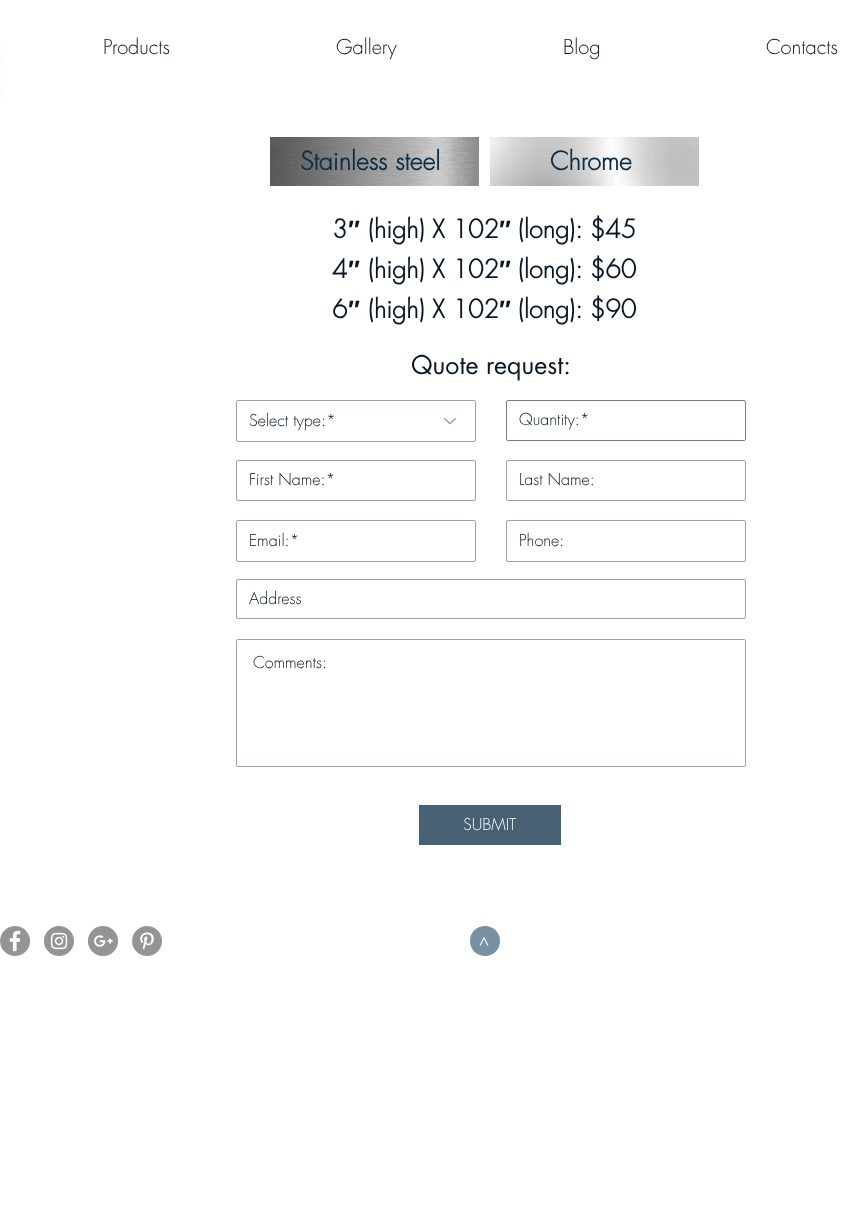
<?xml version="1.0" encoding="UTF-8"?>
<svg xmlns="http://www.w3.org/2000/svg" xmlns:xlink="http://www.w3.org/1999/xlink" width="860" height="1209">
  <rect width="100%" height="100%" fill="#ffffff" />
  <image x="0" y="47" width="5" height="51" xlink:href="image1.png" />
  <image x="270" y="137" width="209" height="49" xlink:href="image2.png" />
  <image x="490" y="137" width="209" height="49" xlink:href="image3.png" />
  <rect x="236.5" y="400.5" width="239" height="41" rx="1.5" fill="none" stroke="#9ca2a7" />
  <image x="444" y="418" width="12" height="7" xlink:href="image4.png" />
  <rect x="506.5" y="400.5" width="239" height="40" rx="1.5" fill="none" stroke="#777f86" />
  <rect x="236.5" y="460.5" width="239" height="40" rx="1.5" fill="none" stroke="#9ca2a7" />
  <rect x="506.5" y="460.5" width="239" height="40" rx="1.5" fill="none" stroke="#9ca2a7" />
  <rect x="236.5" y="520.5" width="239" height="41" rx="1.5" fill="none" stroke="#9ca2a7" />
  <rect x="506.5" y="520.5" width="239" height="41" rx="1.5" fill="none" stroke="#9ca2a7" />
  <rect x="236.5" y="579.5" width="509" height="39" rx="1.5" fill="none" stroke="#9ca2a7" />
  <rect x="236.5" y="639.5" width="509" height="127" rx="1.5" fill="none" stroke="#9ca2a7" />
  <rect x="419" y="805" width="142" height="40" fill="#476074" />
  <image x="0" y="926" width="30" height="30" xlink:href="image5.png" />
  <image x="44" y="926" width="30" height="30" xlink:href="image6.png" />
  <image x="88" y="926" width="30" height="30" xlink:href="image7.png" />
  <image x="132" y="926" width="30" height="30" xlink:href="image8.png" />
  <path d="M 470 941 c 0 -8.5 6.5 -15 15 -15 c 8.5 0 15 6.5 15 15 c 0 8.5 -6.5 15 -15 15 c -8.5 0 -15 -6.5 -15 -15 z" fill="#7890a3" />
  <text x="103" y="54" style="font-family: futura; font-size: 20px; font-weight: 300; fill: #081723">Products</text>
  <text x="336" y="54" style="font-family: futura; font-size: 20px; font-weight: 300; fill: #081723">Gallery</text>
  <text x="563" y="54" style="font-family: futura; font-size: 20px; font-weight: 300; fill: #081723">Blog</text>
  <text x="766" y="54" style="font-family: futura; font-size: 20px; font-weight: 300; fill: #081723">Contacts</text>
  <text x="300" y="170" style="font-family: futura; font-size: 25px; font-weight: bold; fill: #0e2e47">Stainless steel</text>
  <text x="550" y="170" style="font-family: futura; font-size: 25px; font-weight: bold; fill: #0e2e47">Chrome</text>
  <text x="332" y="238" style="font-family: futura; font-size: 25px; font-weight: bold; fill: #081723">3</text>
  <text x="348" y="238" style="font-family: Liberation Sans; font-size: 25px; font-weight: bold; fill: #081723">″</text>
  <text x="368" y="238" style="font-family: futura; font-size: 25px; font-weight: bold; fill: #081723">(high) X 102</text>
  <text x="499" y="238" style="font-family: Liberation Sans; font-size: 25px; font-weight: bold; fill: #081723">″</text>
  <text x="518" y="238" style="font-family: futura; font-size: 25px; font-weight: bold; fill: #081723">(long): $45</text>
  <text x="332" y="278" style="font-family: futura; font-size: 25px; font-weight: bold; fill: #081723">4</text>
  <text x="348" y="278" style="font-family: Liberation Sans; font-size: 25px; font-weight: bold; fill: #081723">″</text>
  <text x="368" y="278" style="font-family: futura; font-size: 25px; font-weight: bold; fill: #081723">(high) X 102</text>
  <text x="499" y="278" style="font-family: Liberation Sans; font-size: 25px; font-weight: bold; fill: #081723">″</text>
  <text x="518" y="278" style="font-family: futura; font-size: 25px; font-weight: bold; fill: #081723">(long): $60</text>
  <text x="332" y="318" style="font-family: futura; font-size: 25px; font-weight: bold; fill: #081723">6</text>
  <text x="348" y="318" style="font-family: Liberation Sans; font-size: 25px; font-weight: bold; fill: #081723">″</text>
  <text x="368" y="318" style="font-family: futura; font-size: 25px; font-weight: bold; fill: #081723">(high) X 102</text>
  <text x="499" y="318" style="font-family: Liberation Sans; font-size: 25px; font-weight: bold; fill: #081723">″</text>
  <text x="518" y="318" style="font-family: futura; font-size: 25px; font-weight: bold; fill: #081723">(long): $90</text>
  <text x="411" y="374" style="font-family: futura; font-size: 25px; fill: #081723">Quote request:</text>
  <text x="249" y="426" style="font-family: futura; font-size: 16px; font-weight: 300; fill: #081723">Select type:*</text>
  <text x="519" y="425" style="font-family: futura; font-size: 16px; font-weight: 300; fill: #081723">Quantity:*</text>
  <text x="249" y="485" style="font-family: futura; font-size: 16px; font-weight: 300; fill: #081723">First Name:*</text>
  <text x="519" y="485" style="font-family: futura; font-size: 16px; font-weight: 300; fill: #081723">Last Name:</text>
  <text x="249" y="546" style="font-family: futura; font-size: 16px; font-weight: 300; fill: #081723">Email:*</text>
  <text x="519" y="546" style="font-family: futura; font-size: 16px; font-weight: 300; fill: #081723">Phone:</text>
  <text x="249" y="604" style="font-family: futura; font-size: 16px; font-weight: 300; fill: #081723">Address</text>
  <text x="253" y="668" style="font-family: futura; font-size: 16px; font-weight: 300; fill: #081723">Comments:</text>
  <text x="463" y="830" style="font-family: futura; font-size: 16px; font-weight: 300; fill: #ffffff">SUBMIT</text>
  <text x="490" y="946" transform="rotate(-90 490 946)" style="font-family: 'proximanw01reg'; font-size: 18px; fill: #ffffff">&gt;</text>
</svg>
